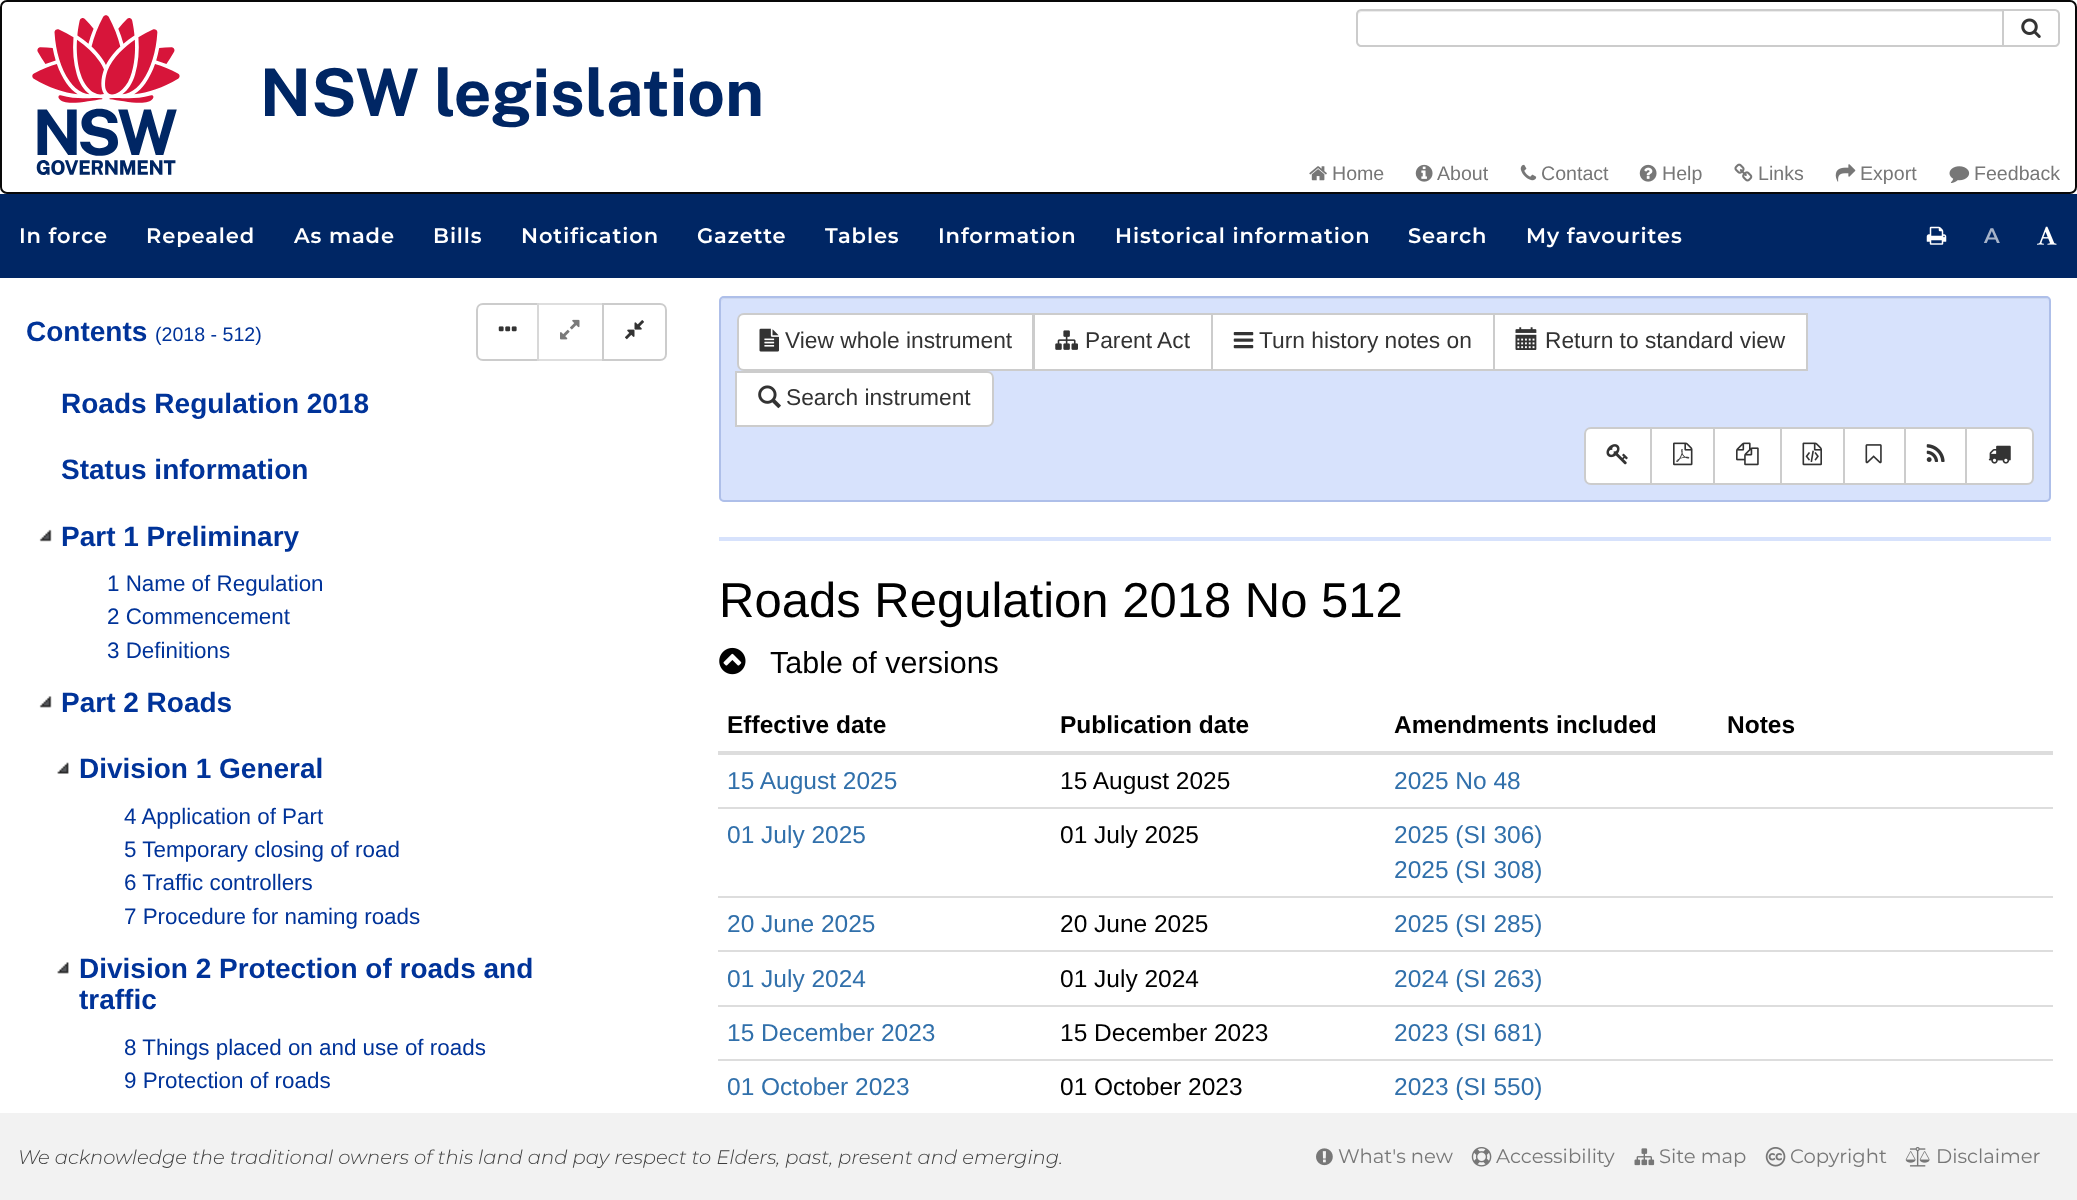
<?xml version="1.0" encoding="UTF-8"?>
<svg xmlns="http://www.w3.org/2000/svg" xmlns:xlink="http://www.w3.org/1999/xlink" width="2077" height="1200">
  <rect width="100%" height="100%" fill="#ffffff" />
  <rect x="1" y="1" width="2075" height="192" rx="6" fill="none" stroke="#080808" stroke-width="2" />
  <image x="32" y="15" width="729" height="160" xlink:href="image1.png" />
  <path d="M 2003 10 h 52 c 2 0 4 2 4 4 v 28 c 0 2 -2 4 -4 4 h -52 z" fill="none" stroke="#cccccc" stroke-width="2" />
  <path d="M 1361 9 h 643 v 38 h -643 c -3 0 -5 -2 -5 -5 v -28 c 0 -3 2 -5 5 -5 z" fill="#ffffff" />
  <path d="M 1362 12 h 640 v -1 h -640 c -3 0 -4 2 -4 5 c 0 -2 2 -4 4 -4 z" fill="#ececec" />
  <path d="M 1361 10 h 642 v 36 h -642 c -2 0 -4 -2 -4 -4 v -28 c 0 -2 2 -4 4 -4 z" fill="none" stroke="#cccccc" stroke-width="2" />
  <image x="2021" y="18" width="20" height="20" xlink:href="image2.png" />
  <image x="1309" y="166" width="18" height="15" xlink:href="image3.png" />
  <image x="1415" y="164" width="18" height="18" xlink:href="image4.png" />
  <image x="1520" y="164" width="17" height="17" xlink:href="image5.png" />
  <image x="1639" y="164" width="18" height="18" xlink:href="image6.png" />
  <image x="1734" y="163" width="19" height="19" xlink:href="image7.png" />
  <image x="1835" y="164" width="21" height="18" xlink:href="image8.png" />
  <image x="1949" y="166" width="21" height="17" xlink:href="image9.png" />
  <rect y="194" width="2077" height="84" fill="#002664" />
  <image x="1926" y="226" width="21" height="19" xlink:href="image10.png" />
  <image x="2037" y="226" width="20" height="19" xlink:href="image11.png" />
  <path d="M 483 304 h 55 v 56 h -55 c -3.5 0 -6 -2.5 -6 -6 v -44 c 0 -3.5 2.5 -6 6 -6 z" fill="none" stroke="#cccccc" stroke-width="2" />
  <image x="498" y="326" width="19" height="6" xlink:href="image12.png" />
  <rect x="537" y="303" width="2" height="58" fill="#ffffff" fill-opacity="0.65" />
  <rect x="538" y="304" width="65" height="56" fill="none" stroke="#cccccc" stroke-opacity="0.65" stroke-width="2" />
  <image x="560" y="319" width="20" height="21" xlink:href="image13.png" />
  <path d="M 603 304 h 57 c 3.5 0 6 2.5 6 6 v 44 c 0 3.5 -2.5 6 -6 6 h -57 z" fill="#ffffff" stroke="#cccccc" stroke-width="2" />
  <image x="625" y="320" width="19" height="20" xlink:href="image14.png" />
  <image x="39" y="529" width="13" height="13" xlink:href="image15.png" />
  <image x="39" y="696" width="13" height="12" xlink:href="image16.png" />
  <image x="57" y="762" width="12" height="12" xlink:href="image17.png" />
  <image x="57" y="962" width="12" height="12" xlink:href="image18.png" />
  <rect x="719" y="296" width="1332" height="206" rx="5" fill="#d7e2fc" />
  <path d="M 724 299 h 1322 c 2 0 3 2 3 4 v -1 c 0 -2 -2 -4 -4 -4 h -1320 c -2 0 -4 2 -4 4 v 1 c 0 -2 2 -4 3 -4 z" fill="#ccd7ef" />
  <rect x="720" y="297" width="1330" height="204" rx="4" fill="none" stroke="#aebfe9" stroke-width="2" />
  <path d="M 744 314 h 289 v 56 h -289 c -3.5 0 -6 -2.5 -6 -6 v -44 c 0 -3.5 2.5 -6 6 -6 z" fill="#ffffff" stroke="#cccccc" stroke-width="2" />
  <image x="759" y="328" width="20" height="24" xlink:href="image19.png" />
  <rect x="1034" y="314" width="178" height="56" fill="#ffffff" stroke="#cccccc" stroke-width="2" />
  <image x="1055" y="330" width="23" height="20" xlink:href="image20.png" />
  <rect x="1212" y="314" width="282" height="56" fill="#ffffff" stroke="#cccccc" stroke-width="2" />
  <image x="1233" y="332" width="21" height="17" xlink:href="image21.png" />
  <rect x="1494" y="314" width="313" height="56" fill="#ffffff" stroke="#cccccc" stroke-width="2" />
  <image x="1515" y="327" width="22" height="23" xlink:href="image22.png" />
  <path d="M 736 372 h 251 c 3.5 0 6 2.5 6 6 v 42 c 0 3.5 -2.5 6 -6 6 h -251 z" fill="#ffffff" stroke="#cccccc" stroke-width="2" />
  <image x="758" y="385" width="23" height="24" xlink:href="image23.png" />
  <path d="M 1591 428 h 60 v 56 h -60 c -3.5 0 -6 -2.5 -6 -6 v -44 c 0 -3.5 2.5 -6 6 -6 z" fill="#ffffff" stroke="#cccccc" stroke-width="2" />
  <image x="1606" y="444" width="22" height="21" xlink:href="image24.png" />
  <rect x="1651" y="428" width="63" height="56" fill="#ffffff" stroke="#cccccc" stroke-width="2" />
  <image x="1673" y="442" width="20" height="24" xlink:href="image25.png" />
  <rect x="1714" y="428" width="67" height="56" fill="#ffffff" stroke="#cccccc" stroke-width="2" />
  <image x="1736" y="442" width="23" height="24" xlink:href="image26.png" />
  <rect x="1781" y="428" width="63" height="56" fill="#ffffff" stroke="#cccccc" stroke-width="2" />
  <image x="1802" y="442" width="20" height="24" xlink:href="image27.png" />
  <rect x="1844" y="428" width="61" height="56" fill="#ffffff" stroke="#cccccc" stroke-width="2" />
  <image x="1865" y="444" width="17" height="20" xlink:href="image28.png" />
  <rect x="1905" y="428" width="61" height="56" fill="#ffffff" stroke="#cccccc" stroke-width="2" />
  <image x="1926" y="444" width="19" height="18" xlink:href="image29.png" />
  <path d="M 1966 428 h 61 c 3.5 0 6 2.5 6 6 v 44 c 0 3.5 -2.5 6 -6 6 h -61 z" fill="#ffffff" stroke="#cccccc" stroke-width="2" />
  <image x="1988" y="445" width="23" height="19" xlink:href="image30.png" />
  <rect x="719" y="537" width="1332" height="4" fill="#d7e2fc" />
  <image x="719" y="647" width="27" height="28" xlink:href="image31.png" />
  <rect x="718" y="751" width="1335" height="4" fill="#dddddd" />
  <rect x="718" y="807" width="1335" height="2" fill="#dddddd" />
  <rect x="718" y="896" width="1335" height="2" fill="#dddddd" />
  <rect x="718" y="950" width="1335" height="2" fill="#dddddd" />
  <rect x="718" y="1005" width="1335" height="2" fill="#dddddd" />
  <rect x="718" y="1059" width="1335" height="2" fill="#dddddd" />
  <rect y="1113" width="2077" height="87" fill="#f2f2f2" />
  <image x="1316" y="1148" width="17" height="18" xlink:href="image32.png" />
  <image x="1471" y="1147" width="21" height="20" xlink:href="image33.png" />
  <image x="1634" y="1148" width="21" height="18" xlink:href="image34.png" />
  <image x="1765" y="1147" width="21" height="20" xlink:href="image35.png" />
  <image x="1905" y="1147" width="25" height="20" xlink:href="image36.png" />
  <text x="1332" y="180" style="font-family: Liberation Sans; font-size: 19.6px; fill: #777777">Home</text>
  <text x="1437" y="180" style="font-family: Liberation Sans; font-size: 19.6px; fill: #777777">About</text>
  <text x="1541" y="180" style="font-family: Liberation Sans; font-size: 19.6px; fill: #777777">Contact</text>
  <text x="1662" y="180" style="font-family: Liberation Sans; font-size: 19.6px; fill: #777777">Help</text>
  <text x="1758" y="180" style="font-family: Liberation Sans; font-size: 19.6px; fill: #777777">Links</text>
  <text x="1860" y="180" style="font-family: Liberation Sans; font-size: 19.6px; fill: #777777">Export</text>
  <text x="1974" y="180" style="font-family: Liberation Sans; font-size: 19.6px; fill: #777777">Feedback</text>
  <text x="19" y="243" style="font-family: Montserrat; font-size: 21px; font-weight: 600; letter-spacing: 0.9px; fill: #ffffff">In force</text>
  <text x="146" y="243" style="font-family: Montserrat; font-size: 21px; font-weight: 600; letter-spacing: 0.9px; fill: #ffffff">Repealed</text>
  <text x="294" y="243" style="font-family: Montserrat; font-size: 21px; font-weight: 600; letter-spacing: 0.9px; fill: #ffffff">As made</text>
  <text x="433" y="243" style="font-family: Montserrat; font-size: 21px; font-weight: 600; letter-spacing: 0.9px; fill: #ffffff">Bills</text>
  <text x="521" y="243" style="font-family: Montserrat; font-size: 21px; font-weight: 600; letter-spacing: 0.9px; fill: #ffffff">Notification</text>
  <text x="697" y="243" style="font-family: Montserrat; font-size: 21px; font-weight: 600; letter-spacing: 0.9px; fill: #ffffff">Gazette</text>
  <text x="825" y="243" style="font-family: Montserrat; font-size: 21px; font-weight: 600; letter-spacing: 0.9px; fill: #ffffff">Tables</text>
  <text x="938" y="243" style="font-family: Montserrat; font-size: 21px; font-weight: 600; letter-spacing: 0.9px; fill: #ffffff">Information</text>
  <text x="1115" y="243" style="font-family: Montserrat; font-size: 21px; font-weight: 600; letter-spacing: 0.9px; fill: #ffffff">Historical information</text>
  <text x="1408" y="243" style="font-family: Montserrat; font-size: 21px; font-weight: 600; letter-spacing: 0.9px; fill: #ffffff">Search</text>
  <text x="1526" y="243" style="font-family: Montserrat; font-size: 21px; font-weight: 600; letter-spacing: 0.9px; fill: #ffffff">My favourites</text>
  <text x="1984" y="243" style="font-family: Montserrat; font-size: 21px; font-weight: 600; letter-spacing: 0.9px; fill: #a6b3c9">A</text>
  <text x="26" y="341" style="font-family: Liberation Sans; font-size: 28px; font-weight: bold; fill: #003399">Contents</text>
  <text x="155" y="341" style="font-family: Liberation Sans; font-size: 19.6px; fill: #003399">(2018 - 512)</text>
  <text x="61" y="413" style="font-family: Liberation Sans; font-size: 28px; font-weight: bold; fill: #003399">Roads Regulation 2018</text>
  <text x="61" y="479" style="font-family: Liberation Sans; font-size: 28px; font-weight: bold; fill: #003399">Status information</text>
  <text x="61" y="546" style="font-family: Liberation Sans; font-size: 28px; font-weight: bold; fill: #003399">Part 1 Preliminary</text>
  <text x="107" y="591" style="font-family: Liberation Sans; font-size: 22.4px; fill: #003399">1 Name of Regulation</text>
  <text x="107" y="624" style="font-family: Liberation Sans; font-size: 22.4px; fill: #003399">2 Commencement</text>
  <text x="107" y="658" style="font-family: Liberation Sans; font-size: 22.4px; fill: #003399">3 Definitions</text>
  <text x="61" y="712" style="font-family: Liberation Sans; font-size: 28px; font-weight: bold; fill: #003399">Part 2 Roads</text>
  <text x="79" y="778" style="font-family: Liberation Sans; font-size: 28px; font-weight: bold; fill: #003399">Division 1 General</text>
  <text x="124" y="824" style="font-family: Liberation Sans; font-size: 22.4px; fill: #003399">4 Application of Part</text>
  <text x="124" y="857" style="font-family: Liberation Sans; font-size: 22.4px; fill: #003399">5 Temporary closing of road</text>
  <text x="124" y="890" style="font-family: Liberation Sans; font-size: 22.4px; fill: #003399">6 Traffic controllers</text>
  <text x="124" y="924" style="font-family: Liberation Sans; font-size: 22.4px; fill: #003399">7 Procedure for naming roads</text>
  <text x="79" y="978" style="font-family: Liberation Sans; font-size: 28px; font-weight: bold; fill: #003399">Division 2 Protection of roads and</text>
  <text x="79" y="1009" style="font-family: Liberation Sans; font-size: 28px; font-weight: bold; fill: #003399">traffic</text>
  <text x="124" y="1055" style="font-family: Liberation Sans; font-size: 22.4px; fill: #003399">8 Things placed on and use of roads</text>
  <text x="124" y="1088" style="font-family: Liberation Sans; font-size: 22.4px; fill: #003399">9 Protection of roads</text>
  <text x="785" y="348" style="font-family: Liberation Sans; font-size: 22.75px; fill: #333333">View whole instrument</text>
  <text x="1085" y="348" style="font-family: Liberation Sans; font-size: 22.75px; fill: #333333">Parent Act</text>
  <text x="1259" y="348" style="font-family: Liberation Sans; font-size: 22.75px; fill: #333333">Turn history notes on</text>
  <text x="1545" y="348" style="font-family: Liberation Sans; font-size: 22.75px; fill: #333333">Return to standard view</text>
  <text x="786" y="405" style="font-family: Liberation Sans; font-size: 22.75px; fill: #333333">Search instrument</text>
  <text x="719" y="617" style="font-family: Liberation Sans; font-size: 49px; fill: #000000">Roads Regulation 2018 No 512</text>
  <text x="770" y="673" style="font-family: Liberation Sans; font-size: 30.5px; fill: #000000">Table of versions</text>
  <text x="727" y="733" style="font-family: Liberation Sans; font-size: 24.5px; font-weight: bold; fill: #000000">Effective date</text>
  <text x="1060" y="733" style="font-family: Liberation Sans; font-size: 24.5px; font-weight: bold; fill: #000000">Publication date</text>
  <text x="1394" y="733" style="font-family: Liberation Sans; font-size: 24.5px; font-weight: bold; fill: #000000">Amendments included</text>
  <text x="1727" y="733" style="font-family: Liberation Sans; font-size: 24.5px; font-weight: bold; fill: #000000">Notes</text>
  <text x="727" y="789" style="font-family: Liberation Sans; font-size: 24.5px; fill: #3170ab">15 August 2025</text>
  <text x="1060" y="789" style="font-family: Liberation Sans; font-size: 24.5px; fill: #000000">15 August 2025</text>
  <text x="1394" y="789" style="font-family: Liberation Sans; font-size: 24.5px; fill: #3170ab">2025 No 48</text>
  <text x="727" y="843" style="font-family: Liberation Sans; font-size: 24.5px; fill: #3170ab">01 July 2025</text>
  <text x="1060" y="843" style="font-family: Liberation Sans; font-size: 24.5px; fill: #000000">01 July 2025</text>
  <text x="1394" y="843" style="font-family: Liberation Sans; font-size: 24.5px; fill: #3170ab">2025 (SI 306)</text>
  <text x="1394" y="878" style="font-family: Liberation Sans; font-size: 24.5px; fill: #3170ab">2025 (SI 308)</text>
  <text x="727" y="932" style="font-family: Liberation Sans; font-size: 24.5px; fill: #3170ab">20 June 2025</text>
  <text x="1060" y="932" style="font-family: Liberation Sans; font-size: 24.5px; fill: #000000">20 June 2025</text>
  <text x="1394" y="932" style="font-family: Liberation Sans; font-size: 24.5px; fill: #3170ab">2025 (SI 285)</text>
  <text x="727" y="987" style="font-family: Liberation Sans; font-size: 24.5px; fill: #3170ab">01 July 2024</text>
  <text x="1060" y="987" style="font-family: Liberation Sans; font-size: 24.5px; fill: #000000">01 July 2024</text>
  <text x="1394" y="987" style="font-family: Liberation Sans; font-size: 24.5px; fill: #3170ab">2024 (SI 263)</text>
  <text x="727" y="1041" style="font-family: Liberation Sans; font-size: 24.5px; fill: #3170ab">15 December 2023</text>
  <text x="1060" y="1041" style="font-family: Liberation Sans; font-size: 24.5px; fill: #000000">15 December 2023</text>
  <text x="1394" y="1041" style="font-family: Liberation Sans; font-size: 24.5px; fill: #3170ab">2023 (SI 681)</text>
  <text x="727" y="1095" style="font-family: Liberation Sans; font-size: 24.5px; fill: #3170ab">01 October 2023</text>
  <text x="1060" y="1095" style="font-family: Liberation Sans; font-size: 24.5px; fill: #000000">01 October 2023</text>
  <text x="1394" y="1095" style="font-family: Liberation Sans; font-size: 24.5px; fill: #3170ab">2023 (SI 550)</text>
  <text x="18" y="1164" style="font-family: Montserrat; font-size: 19.6px; font-weight: 300; font-style: italic; fill: #3d3d3d">We acknowledge the traditional owners of this land and pay respect to Elders, past, present and emerging.</text>
  <text x="1338" y="1163" style="font-family: Montserrat; font-size: 19.6px; fill: #777777">What's new</text>
  <text x="1496" y="1163" style="font-family: Montserrat; font-size: 19.6px; fill: #777777">Accessibility</text>
  <text x="1659" y="1163" style="font-family: Montserrat; font-size: 19.6px; fill: #777777">Site map</text>
  <text x="1790" y="1163" style="font-family: Montserrat; font-size: 19.6px; fill: #777777">Copyright</text>
  <text x="1936" y="1163" style="font-family: Montserrat; font-size: 19.6px; fill: #777777">Disclaimer</text>
</svg>
